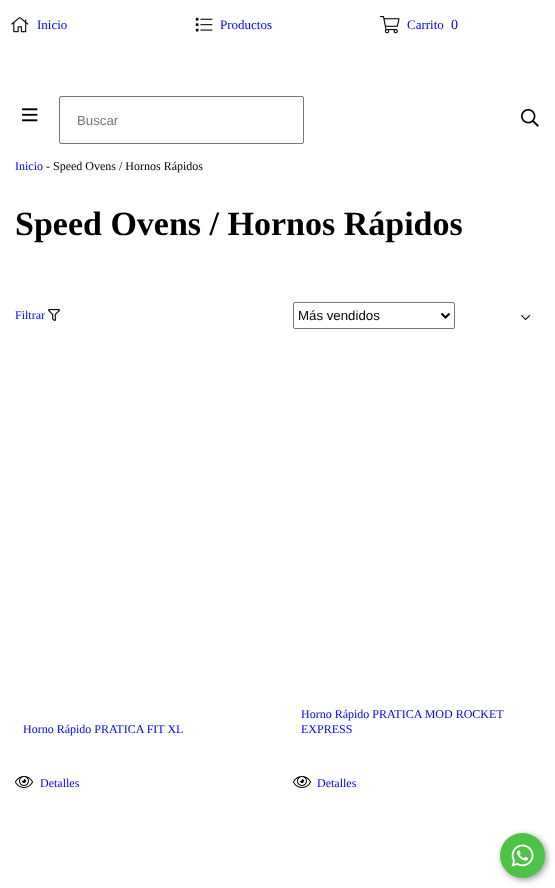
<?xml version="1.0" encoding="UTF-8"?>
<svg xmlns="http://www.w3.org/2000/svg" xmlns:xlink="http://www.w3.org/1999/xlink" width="555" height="888">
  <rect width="100%" height="100%" fill="#ffffff" />
  <image x="11" y="17" width="18" height="16" xlink:href="image1.png" />
  <image x="195" y="17" width="18" height="15" xlink:href="image2.png" />
  <image x="380" y="16" width="20" height="18" xlink:href="image3.png" />
  <image x="22" y="108" width="16" height="14" xlink:href="image4.png" />
  <rect x="59.5" y="96.5" width="244" height="47" rx="1.5" fill="none" stroke="#767676" />
  <image x="521" y="109" width="18" height="18" xlink:href="image5.png" />
  <image x="48" y="309" width="12" height="12" xlink:href="image6.png" />
  <rect x="293.5" y="302.5" width="161" height="26" rx="1.5" fill="none" stroke="#767676" />
  <path d="M 441.5 313.5 l 4 4 l 4 -4" fill="none" stroke="#000000" stroke-width="2" />
  <image x="521" y="315" width="10" height="6" xlink:href="image7.png" />
  <image x="15" y="776" width="18" height="12" xlink:href="image8.png" />
  <image x="293" y="776" width="18" height="12" xlink:href="image8.png" />
  <rect x="502" y="835" width="45" height="45" rx="22.5" fill="#000000" fill-opacity="0.4" filter="blur(3px)" />
  <circle cx="522.5" cy="855.5" r="22.5" fill="#4dc247" />
  <image x="511" y="844" width="23" height="23" xlink:href="image9.png" />
  <text x="37" y="29" style="font-family: Liberation Serif; font-size: 13px; fill: #0000ee">Inicio</text>
  <text x="220" y="29" style="font-family: Liberation Serif; font-size: 13px; fill: #0000ee">Productos</text>
  <text x="407" y="29" style="font-family: Liberation Serif; font-size: 13px; fill: #0000ee">Carrito</text>
  <text x="451" y="29" style="font-family: Liberation Serif; font-size: 14px; fill: #0000ee">0</text>
  <text x="77" y="125" style="font-family: Liberation Sans; font-size: 13.25px; fill: #757575">Buscar</text>
  <text x="15" y="170" style="font-family: Liberation Serif; font-size: 12px; fill: #0000ee">Inicio</text>
  <text x="46" y="170" style="font-family: Liberation Serif; font-size: 12px; fill: #000000">- Speed Ovens / Hornos Rápidos</text>
  <text x="15" y="235" style="font-family: Liberation Serif; font-size: 34px; font-weight: bold; fill: #000000">Speed Ovens / Hornos Rápidos</text>
  <text x="15" y="319" style="font-family: Liberation Serif; font-size: 12px; fill: #0000ee">Filtrar</text>
  <text x="298" y="320" style="font-family: Liberation Sans; font-size: 13.25px; fill: #000000">Más vendidos</text>
  <text x="23" y="733" style="font-family: Liberation Serif; font-size: 12px; fill: #0000ee">Horno Rápido PRATICA FIT XL</text>
  <text x="40" y="787" style="font-family: Liberation Serif; font-size: 12px; fill: #0000ee">Detalles</text>
  <text x="301" y="718" style="font-family: Liberation Serif; font-size: 12px; fill: #0000ee">Horno Rápido PRATICA MOD ROCKET</text>
  <text x="301" y="733" style="font-family: Liberation Serif; font-size: 12px; fill: #0000ee">EXPRESS</text>
  <text x="317" y="787" style="font-family: Liberation Serif; font-size: 12px; fill: #0000ee">Detalles</text>
</svg>
